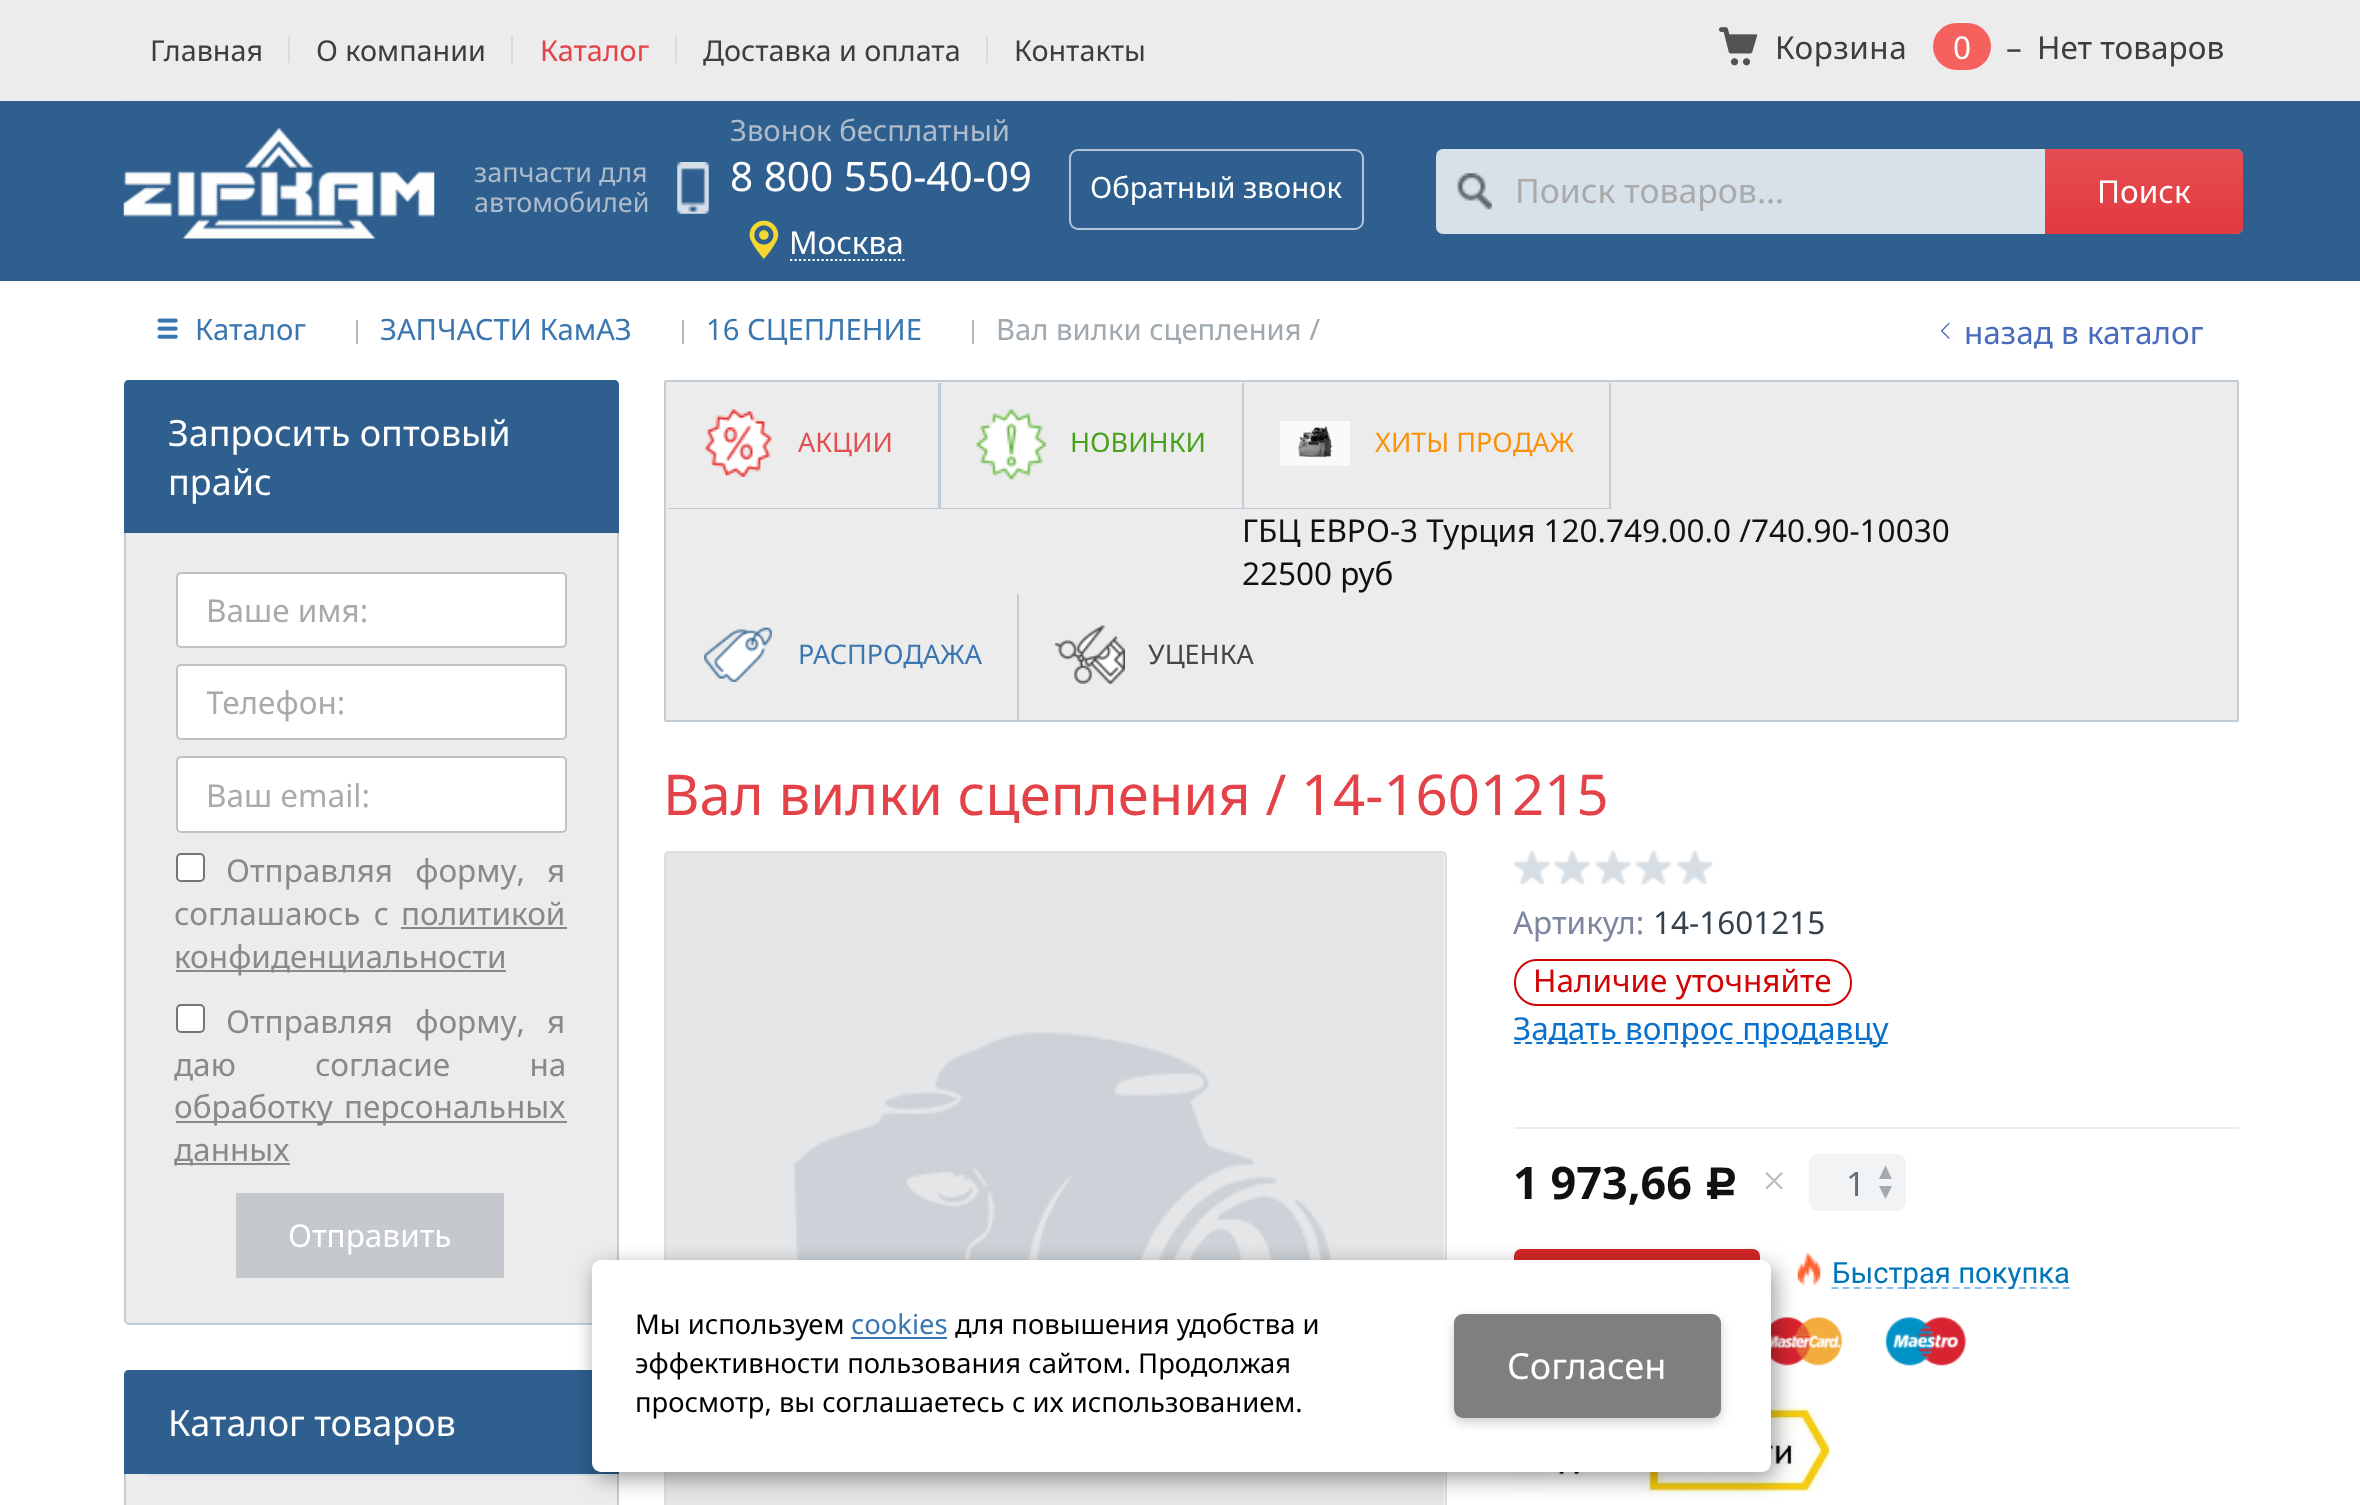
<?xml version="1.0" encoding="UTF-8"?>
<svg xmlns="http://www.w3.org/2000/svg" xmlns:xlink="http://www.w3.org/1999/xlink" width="2360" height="1505">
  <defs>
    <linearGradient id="g1" gradientUnits="userSpaceOnUse" x1="2144" y1="149" x2="2144" y2="234"><stop offset="0" stop-color="#ffffff" stop-opacity="0.1" /><stop offset="1" stop-color="#ffffff" stop-opacity="0" /></linearGradient>
    <clipPath id="clip1"><rect x="207" y="682" width="329" height="43" /></clipPath>
  </defs>
  <rect width="100%" height="100%" fill="#ffffff" />
  <rect width="2360" height="101" fill="#ececec" />
  <rect x="124" y="99" width="1102" height="2" fill="#e8e9ea" />
  <rect x="288" y="36" width="2" height="27" fill="#d5dde1" />
  <rect x="511" y="36" width="2" height="27" fill="#d5dde1" />
  <rect x="675" y="36" width="2" height="27" fill="#d5dde1" />
  <rect x="986" y="36" width="2" height="27" fill="#d5dde1" />
  <image x="1719" y="27" width="39" height="39" xlink:href="image1.png" />
  <rect x="1933" y="23" width="58" height="47" rx="23.5" fill="#f5625d" />
  <rect y="101" width="2360" height="180" fill="#2e5f8e" />
  <image x="123" y="128" width="312" height="111" xlink:href="image2.png" />
  <image x="677" y="162" width="32" height="52" xlink:href="image3.png" />
  <rect x="1070" y="150" width="293" height="79" rx="8" fill="none" stroke="#b2c4d5" stroke-width="2" />
  <image x="749" y="220" width="30" height="39" xlink:href="image4.png" />
  <path d="M 790 260 h 114.5" fill="none" stroke="#ffffff" stroke-width="2.2" stroke-dasharray="2.25 2.25" />
  <rect x="1436" y="149" width="807" height="85" rx="7" fill="#d7e1ea" />
  <image x="1457" y="173" width="35" height="37" xlink:href="image5.png" />
  <path d="M 2045 149 h 191 c 4 0 7 3 7 7 v 71 c 0 4 -3 7 -7 7 h -191 z" fill="#e23a3f" />
  <path d="M 2045 149 h 191 c 4 0 7 3 7 7 v 71 c 0 4 -3 7 -7 7 h -191 z" fill="url(#g1)" />
  <image x="157" y="318" width="21" height="21" xlink:href="image6.png" />
  <rect x="356" y="320" width="2" height="24" fill="#acbbc4" />
  <rect x="682" y="320" width="2" height="24" fill="#acbbc4" />
  <rect x="972" y="320" width="2" height="24" fill="#acbbc4" />
  <image x="1941" y="322" width="9" height="17" xlink:href="image7.png" />
  <rect x="124" y="380" width="495" height="945" rx="5" fill="#ececec" />
  <rect x="125" y="381" width="493" height="943" rx="4" fill="none" stroke="#2e5f8e" stroke-opacity="0.22" stroke-width="2" />
  <path d="M 129 380 h 485 c 3 0 5 2 5 5 v 148 h -495 v -148 c 0 -3 2 -5 5 -5 z" fill="#2e5f8e" />
  <rect x="177" y="573" width="389" height="74" rx="4" fill="#ffffff" stroke="#c1c1c1" stroke-width="2" />
  <rect x="177" y="665" width="389" height="74" rx="4" fill="#ffffff" stroke="#c1c1c1" stroke-width="2" />
  <rect x="177" y="757" width="389" height="75" rx="4" fill="#ffffff" stroke="#c1c1c1" stroke-width="2" />
  <rect x="177" y="854" width="27" height="27" rx="4" fill="#ffffff" stroke="#767676" stroke-width="2" />
  <rect x="401" y="927" width="166" height="2" fill="#898989" />
  <rect x="176" y="970" width="330" height="2" fill="#898989" />
  <rect x="177" y="1005" width="27" height="27" rx="4" fill="#ffffff" stroke="#767676" stroke-width="2" />
  <rect x="176" y="1121" width="391" height="2" fill="#898989" />
  <rect x="176" y="1163" width="114" height="2" fill="#898989" />
  <rect x="236" y="1193" width="268" height="85" fill="#c5c9cd" />
  <rect x="124" y="1370" width="495" height="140" rx="5" fill="#ececec" />
  <rect x="125" y="1371" width="493" height="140" rx="4" fill="none" stroke="#2e5f8e" stroke-opacity="0.22" stroke-width="2" />
  <path d="M 129 1370 h 485 c 3 0 5 2 5 5 v 99 h -495 v -99 c 0 -3 2 -5 5 -5 z" fill="#2e5f8e" />
  <rect x="146" y="1474" width="450" height="2" fill="#d9e2e7" />
  <rect x="665" y="381" width="1573" height="340" rx="1" fill="#ececec" stroke="#c2cdd7" stroke-width="2" />
  <image x="704" y="409" width="68" height="68" xlink:href="image8.png" />
  <path d="M 668 508 v 1 h 273 v -126 h -3 v 125 z" fill="#c2cdd7" />
  <image x="976" y="409" width="71" height="71" xlink:href="image9.png" />
  <path d="M 941 508 v 1 h 303 v -126 h -2 v 125 z" fill="#c2cdd7" />
  <image x="1280" y="421" width="70" height="45" xlink:href="image10.png" />
  <path d="M 1244 508 v 1 h 367 v -126 h -2 v 125 z" fill="#c2cdd7" />
  <image x="704" y="627" width="68" height="55" xlink:href="image11.png" />
  <rect x="1017" y="594" width="2" height="126" fill="#c2cdd7" />
  <image x="1055" y="625" width="70" height="59" xlink:href="image12.png" />
  <rect x="665" y="852" width="781" height="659" rx="4" fill="none" stroke="#dddede" stroke-width="2" />
  <image x="666" y="853" width="779" height="652" xlink:href="image13.png" />
  <image x="1514" y="850" width="199" height="35" xlink:href="image14.png" />
  <rect x="1515" y="960" width="336" height="45" rx="22" fill="none" stroke="#d20303" stroke-width="2" />
  <path d="M 1514 1043 h 374" fill="none" stroke="#0971cc" stroke-width="2.2" stroke-dasharray="6.75 4.37" />
  <rect x="1514" y="1127" width="725" height="2" fill="#e8ecf0" />
  <rect x="1809" y="1154" width="97" height="57" rx="9" fill="#f1f3f5" />
  <path d="M 1892 1179 h -13 l 6.5 -13.5 z m -13 7 h 13 l -6.5 13 z" fill="#a4aab0" />
  <rect x="1514" y="1249" width="246" height="74" rx="7" fill="#d22828" />
  <image x="1797" y="1253" width="24" height="32" xlink:href="image15.png" />
  <path d="M 1831.5 1288 h 238.5" fill="none" stroke="#8abeeb" stroke-width="2.2" stroke-dasharray="6.75 4.27" />
  <image x="1514" y="1400" width="316" height="93" xlink:href="image17.png" />
  <text x="150" y="61" style="font-family: Noto Sans; font-size: 28.75px; fill: #3d3d3d">Главная</text>
  <text x="316" y="61" style="font-family: Noto Sans; font-size: 28.75px; fill: #3d3d3d">О компании</text>
  <text x="540" y="61" style="font-family: Noto Sans; font-size: 28.75px; fill: #e34348">Каталог</text>
  <text x="703" y="61" style="font-family: Noto Sans; font-size: 28.75px; fill: #3d3d3d">Доставка и оплата</text>
  <text x="1014" y="61" style="font-family: Noto Sans; font-size: 28.75px; fill: #3d3d3d">Контакты</text>
  <text x="1775" y="59" style="font-family: Noto Sans; font-size: 31.5px; letter-spacing: 0.5px; fill: #3d3d3d">Корзина</text>
  <text x="1953" y="59" style="font-family: Noto Sans; font-size: 31.5px; fill: #ffffff">0</text>
  <text x="2006" y="59" style="font-family: Noto Sans; font-size: 31.5px; fill: #3d3d3d">–</text>
  <text x="2037" y="59" style="font-family: Noto Sans; font-size: 31.5px; fill: #3d3d3d">Нет товаров</text>
  <text x="474" y="182" style="font-family: Noto Sans; font-size: 27px; fill: #aebbca">запчасти для</text>
  <text x="474" y="212" style="font-family: Noto Sans; font-size: 27px; fill: #aebbca">автомобилей</text>
  <text x="730" y="141" style="font-family: Noto Sans; font-size: 29.25px; fill: #aebbca">Звонок бесплатный</text>
  <text x="730" y="191" style="font-family: Noto Sans; font-size: 40.5px; fill: #ffffff">8 800 550-40-09</text>
  <text x="1090" y="198" style="font-family: Noto Sans; font-size: 29.25px; fill: #ffffff">Обратный звонок</text>
  <text x="789" y="254" style="font-family: Noto Sans; font-size: 31.5px; fill: #ffffff">Москва</text>
  <text x="1515" y="203" style="font-family: Noto Sans; font-size: 33.75px; fill: #aaaaaa">Поиск товаров...</text>
  <text x="2097" y="203" style="font-family: Noto Sans; font-size: 31.5px; fill: #ffffff">Поиск</text>
  <text x="195" y="340" style="font-family: Noto Sans; font-size: 29.25px; fill: #3a77b0">Каталог</text>
  <text x="380" y="340" style="font-family: Noto Sans; font-size: 29.25px; fill: #3a77b0">ЗАПЧАСТИ КамАЗ</text>
  <text x="706" y="340" style="font-family: Noto Sans; font-size: 29.25px; fill: #3a77b0">16 СЦЕПЛЕНИЕ</text>
  <text x="996" y="340" style="font-family: Noto Sans; font-size: 29.25px; fill: #a0a9af">Вал вилки сцепления /</text>
  <text x="1964" y="344" style="font-family: Noto Sans; font-size: 31.5px; fill: #496bbc">назад в каталог</text>
  <text x="168" y="446" style="font-family: Noto Sans; font-size: 36px; fill: #ffffff">Запросить оптовый</text>
  <text x="168" y="495" style="font-family: Noto Sans; font-size: 36px; fill: #ffffff">прайс</text>
  <text x="206" y="622" style="font-family: Noto Sans; font-size: 31.5px; fill: #aaaaaa">Ваше имя:</text>
  <g clip-path="url(#clip1)">
    <text x="206" y="714" style="font-family: Noto Sans; font-size: 31.5px; fill: #aaaaaa">Телефон:</text>
  </g>
  <text x="206" y="807" style="font-family: Noto Sans; font-size: 31.5px; fill: #aaaaaa">Ваш email:</text>
  <text x="226" y="882" word-spacing="14" style="font-family: Noto Sans; font-size: 31.5px; fill: #898989">Отправляя форму, я</text>
  <text x="174" y="925" word-spacing="5" style="font-family: Noto Sans; font-size: 31.5px; fill: #898989">соглашаюсь c</text>
  <text x="401" y="925" style="font-family: Noto Sans; font-size: 31.5px; fill: #898989">политикой</text>
  <text x="174" y="968" style="font-family: Noto Sans; font-size: 31.5px; fill: #898989">конфиденциальности</text>
  <text x="226" y="1033" word-spacing="14" style="font-family: Noto Sans; font-size: 31.5px; fill: #898989">Отправляя форму, я</text>
  <text x="174" y="1076" word-spacing="71" style="font-family: Noto Sans; font-size: 31.5px; fill: #898989">даю согласие на</text>
  <text x="174" y="1118" word-spacing="3" style="font-family: Noto Sans; font-size: 31.5px; fill: #898989">обработку персональных</text>
  <text x="174" y="1161" style="font-family: Noto Sans; font-size: 31.5px; fill: #898989">данных</text>
  <text x="288" y="1247" style="font-family: Noto Sans; font-size: 31.5px; fill: #ffffff">Отправить</text>
  <text x="168" y="1436" style="font-family: Noto Sans; font-size: 36px; fill: #ffffff">Каталог товаров</text>
  <text x="798" y="452" style="font-family: Noto Sans; font-size: 27px; fill: #e44d51">АКЦИИ</text>
  <text x="1070" y="452" style="font-family: Noto Sans; font-size: 27px; fill: #47a21b">НОВИНКИ</text>
  <text x="1375" y="452" style="font-family: Noto Sans; font-size: 27px; fill: #fb9108">ХИТЫ ПРОДАЖ</text>
  <text x="1242" y="542" style="font-family: Noto Sans; font-size: 31.5px; fill: #111111">ГБЦ ЕВРО-3 Турция 120.749.00.0 /740.90-10030</text>
  <text x="1242" y="585" style="font-family: Noto Sans; font-size: 31.5px; fill: #111111">22500 руб</text>
  <text x="798" y="664" style="font-family: Noto Sans; font-size: 27px; fill: #3a77b0">РАСПРОДАЖА</text>
  <text x="1148" y="664" style="font-family: Noto Sans; font-size: 27px; fill: #484547">УЦЕНКА</text>
  <text x="663" y="815" style="font-family: Noto Sans; font-size: 56.25px; fill: #e34348">Вал вилки сцепления / 14-1601215</text>
  <text x="1513" y="934" style="font-family: Noto Sans; font-size: 31.5px; fill: #7d859f">Артикул:</text>
  <text x="1653" y="934" style="font-family: Noto Sans; font-size: 31.5px; fill: #35424b">14-1601215</text>
  <text x="1533" y="992" style="font-family: Noto Sans; font-size: 31.5px; fill: #d20303">Наличие уточняйте</text>
  <text x="1513" y="1040" style="font-family: Noto Sans; font-size: 31.5px; fill: #0971cc">Задать вопрос продавцу</text>
  <text x="1513" y="1199" style="font-family: Noto Sans; font-size: 45px; font-weight: bold; fill: #111111">1 973,66</text>
  <text x="1704" y="1199" style="font-family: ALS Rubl; font-size: 45px; fill: #111111">c</text>
  <text x="1762" y="1195" style="font-family: Liberation Serif; font-size: 43px; fill: #b8bcc0">×</text>
  <text x="1846" y="1196" style="font-family: Noto Sans; font-size: 33.75px; fill: #636e76">1</text>
  <text x="1832" y="1283" style="font-family: Roboto; font-size: 29.25px; fill: #0075b8">Быстрая покупка</text>
  <image x="1771" y="1289" width="200" height="77" xlink:href="image16.png" />
  <rect x="596" y="1267" width="1179" height="211" rx="9" fill="#000000" fill-opacity="0.4" filter="blur(11px)" />
  <rect x="592" y="1260" width="1179" height="212" rx="9" fill="#ffffff" />
  <text x="635" y="1334" style="font-family: Noto Sans; font-size: 27.4px; fill: #000000">Мы используем</text>
  <text x="851" y="1334" style="font-family: Noto Sans; font-size: 27.4px; fill: #3a77b0">cookies</text>
  <rect x="851" y="1337" width="96" height="2" fill="#3a77b0" />
  <text x="955" y="1334" style="font-family: Noto Sans; font-size: 27.4px; fill: #000000">для повышения удобства и</text>
  <text x="635" y="1373" style="font-family: Noto Sans; font-size: 27.4px; fill: #000000">эффективности пользования сайтом. Продолжая</text>
  <text x="635" y="1412" style="font-family: Noto Sans; font-size: 27.4px; fill: #000000">просмотр, вы соглашаетесь с их использованием.</text>
  <rect x="1454" y="1319" width="267" height="103" rx="9" fill="#000000" fill-opacity="0.2" filter="blur(5.5px)" />
  <rect x="1454" y="1314" width="267" height="104" rx="9" fill="#7f7f7f" />
  <text x="1507" y="1379" style="font-family: Noto Sans; font-size: 36px; fill: #ffffff">Cогласен</text>
</svg>
